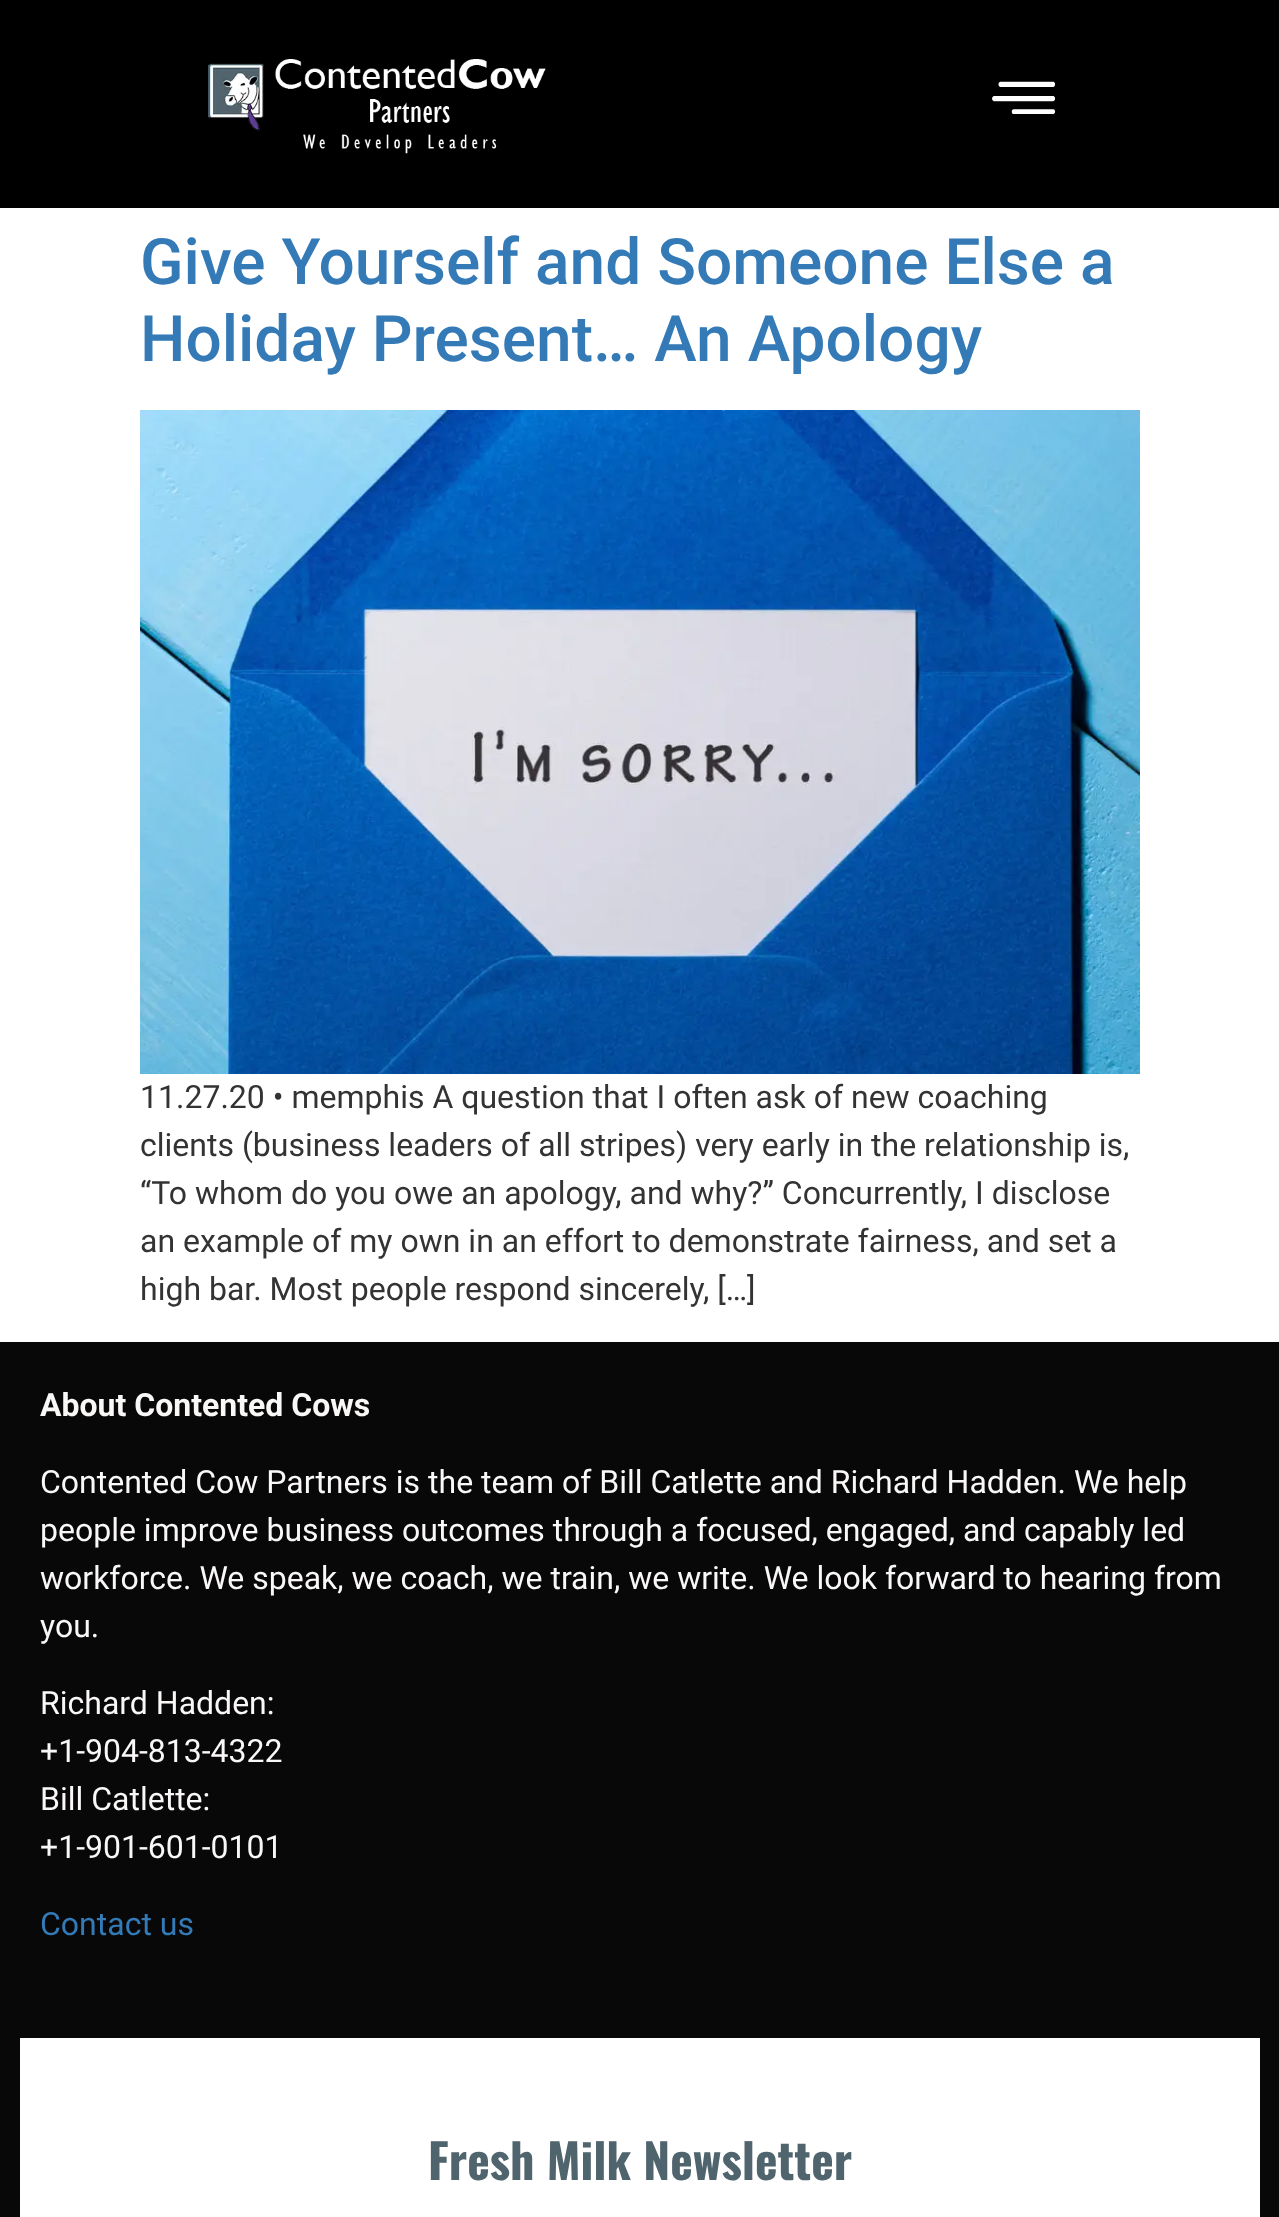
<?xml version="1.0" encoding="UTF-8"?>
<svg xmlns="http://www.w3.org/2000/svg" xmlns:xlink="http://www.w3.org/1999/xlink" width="1279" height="2217">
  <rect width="100%" height="100%" fill="#ffffff" />
  <rect width="1279" height="208" fill="#000000" />
  <image x="208" y="59" width="338" height="95" xlink:href="image1.png" />
  <image x="992" y="81" width="64" height="33" xlink:href="image2.png" />
  <image x="140" y="410" width="1000" height="664" xlink:href="image3.png" />
  <rect y="1342" width="1279" height="875" fill="#080808" />
  <rect x="20" y="2038" width="1240" height="179" fill="#ffffff" />
  <text x="140" y="284" style="font-family: Roboto; font-size: 64px; font-weight: 500; fill: #337ab7">Give Yourself and Someone Else a</text>
  <text x="140" y="361" style="font-family: Roboto; font-size: 64px; font-weight: 500; fill: #337ab7">Holiday Present… An Apology</text>
  <text x="140" y="1108" style="font-family: Roboto; font-size: 32px; fill: #333333">11.27.20 • memphis A question that I often ask of new coaching</text>
  <text x="140" y="1156" style="font-family: Roboto; font-size: 32px; fill: #333333">clients (business leaders of all stripes) very early in the relationship is,</text>
  <text x="140" y="1204" style="font-family: Roboto; font-size: 32px; fill: #333333">“To whom do you owe an apology, and why?” Concurrently, I disclose</text>
  <text x="140" y="1252" style="font-family: Roboto; font-size: 32px; fill: #333333">an example of my own in an effort to demonstrate fairness, and set a</text>
  <text x="140" y="1300" style="font-family: Roboto; font-size: 32px; fill: #333333">high bar. Most people respond sincerely, […]</text>
  <text x="40" y="1416" style="font-family: Roboto; font-size: 32px; font-weight: bold; fill: #faf7f7">About Contented Cows</text>
  <text x="40" y="1493" style="font-family: Roboto; font-size: 32px; fill: #faf7f7">Contented Cow Partners is the team of Bill Catlette and Richard Hadden. We help</text>
  <text x="40" y="1541" style="font-family: Roboto; font-size: 32px; fill: #faf7f7">people improve business outcomes through a focused, engaged, and capably led</text>
  <text x="40" y="1589" style="font-family: Roboto; font-size: 32px; fill: #faf7f7">workforce. We speak, we coach, we train, we write. We look forward to hearing from</text>
  <text x="40" y="1637" style="font-family: Roboto; font-size: 32px; fill: #faf7f7">you.</text>
  <text x="40" y="1714" style="font-family: Roboto; font-size: 32px; fill: #faf7f7">Richard Hadden:</text>
  <text x="40" y="1762" style="font-family: Roboto; font-size: 32px; fill: #faf7f7">+1-904-813-4322</text>
  <text x="40" y="1810" style="font-family: Roboto; font-size: 32px; fill: #faf7f7">Bill Catlette:</text>
  <text x="40" y="1858" style="font-family: Roboto; font-size: 32px; fill: #faf7f7">+1-901-601-0101</text>
  <text x="40" y="1935" style="font-family: Roboto; font-size: 32px; fill: #337ab7">Contact us</text>
  <text x="428" y="2180" style="font-family: Oswald; font-size: 48px; font-weight: bold; fill: #50646e">Fresh Milk Newsletter</text>
</svg>
